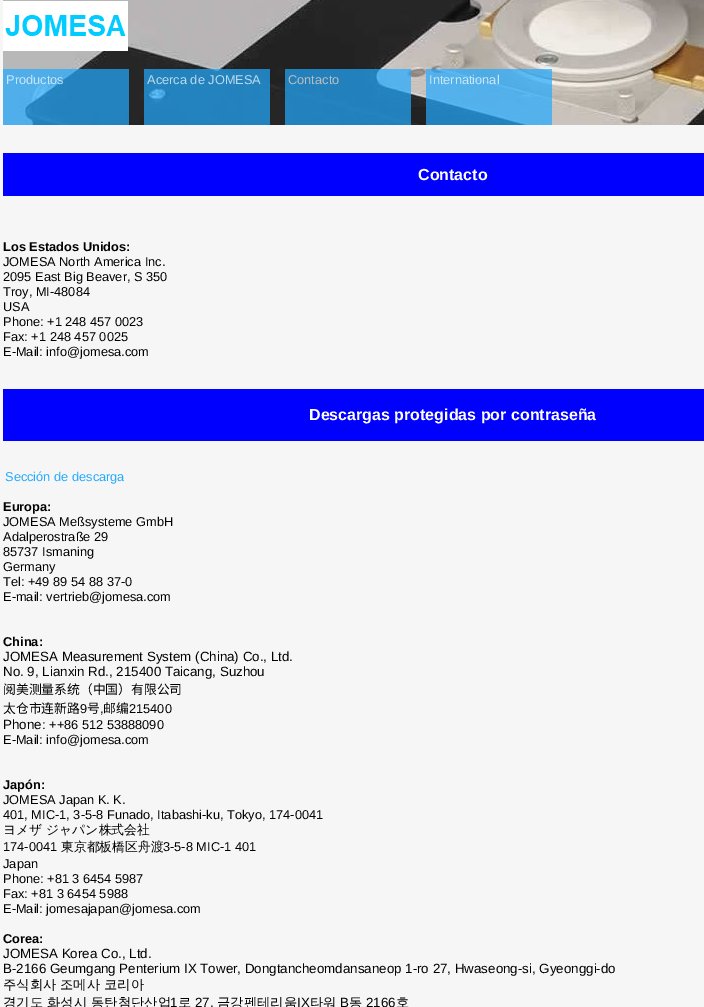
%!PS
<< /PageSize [704 1007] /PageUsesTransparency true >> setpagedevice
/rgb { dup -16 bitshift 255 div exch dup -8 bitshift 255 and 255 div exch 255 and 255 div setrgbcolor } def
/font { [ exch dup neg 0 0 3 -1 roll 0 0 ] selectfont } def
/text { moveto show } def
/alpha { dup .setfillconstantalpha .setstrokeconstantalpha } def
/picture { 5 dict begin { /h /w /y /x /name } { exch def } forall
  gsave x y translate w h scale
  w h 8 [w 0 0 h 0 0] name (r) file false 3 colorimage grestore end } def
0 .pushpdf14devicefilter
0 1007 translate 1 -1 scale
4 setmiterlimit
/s1 { /LiberationSans-Regular 12.8 font 16#CAE6F8 rgb } def
/s2 { /LiberationSans-Regular 12.8 font 16#BDDAEB rgb } def
/s3 { /LiberationSans-Regular 12.8 font 16#BDBDBD rgb } def
/s4 { /LiberationSans-Bold 16 font 16#FFFFFF rgb } def
/s5 { /LiberationSans-Bold 12.8 font 16#000000 rgb } def
/s6 { /LiberationSans-Regular 12.8 font 16#000000 rgb } def
/s7 { /LiberationSans-Regular 12.8 font 16#22AAFF rgb } def
/s8 { /LiberationSans-Regular 13.35 font 16#000000 rgb } def
/s9 { /NotoSansCJKSC-Regular 12.8 font 16#000000 rgb } def
/s10 { /WenQuanYiZenHei-Medium 12.8 font 16#000000 rgb } def
/s11 { /WenQuanYiZenHei-Medium 13.35 font 16#000000 rgb } def
16#F6F6F6 rgb
0 0 704 1007 rectfill
(pic1.raw) 3 0 701 125 picture
(pic2.raw) 3 1 125 50 picture
0.7 alpha
16#22AAFF rgb
3 69 126 56 rectfill
1 alpha
s1
(Productos) 6 84 text
0.7 alpha
16#22AAFF rgb
144 69 126 56 rectfill
1 alpha
s2
(Acerca de JOMESA) 147 84 text
0.7 alpha
16#22AAFF rgb
285 69 126 56 rectfill
1 alpha
s3
(Contacto) 288 84 text
0.7 alpha
16#22AAFF rgb
426 69 126 56 rectfill
1 alpha
s1
(International) 429 84 text
16#0000FF rgb
3 153 701 43 rectfill
s4
(Contacto) 418 180 text
s5
(Los Estados Unidos:) 3 251 text
s6
(JOMESA North America Inc.) 3 266 text
(2095 East Big Beaver, S 350) 3 281 text
(Troy, MI-48084) 3 296 text
(USA) 3 311 text
(Phone: +1 248 457 0023) 3 326 text
(Fax: +1 248 457 0025) 3 341 text
(E-Mail: info@jomesa.com) 3 356 text
16#0000FF rgb
3 389 701 52 rectfill
s4
(Descargas protegidas por contraseña) 309 420 text
s7
(Sección de descarga) 5 481 text
s5
(Europa:) 3 511 text
s6
(JOMESA Meßsysteme GmbH) 3 526 text
(Adalperostraße 29) 3 541 text
(85737 Ismaning) 3 556 text
(Germany) 3 571 text
(Tel: +49 89 54 88 37-0) 3 586 text
(E-mail: vertrieb@jomesa.com) 3 601 text
s5
(China:) 3 646 text
s8
(JOMESA Measurement System \(China\) Co., Ltd.) 3 661 text
(No. 9, Lianxin Rd., 215400 Taicang, Suzhou) 3 676 text
s9
(阅美测量系统（中国）有限公司) 3 694 text
(太仓市连新路) 3 713 text
s6
(9) 80 713 text
s9
(号) 87 713 text
s6
(,) 100 713 text
s9
(邮编) 103 713 text
s6
(215400) 129 713 text
s8
(Phone) 3 729 text
s6
(: ++86 512 53888090) 42 729 text
(E-Mail: info@jomesa.com) 3 744 text
s5
(Japón:) 3 789 text
s6
(JOMESA Japan K. K.) 3 804 text
(401, MIC-1, 3-5-8 Funado, Itabashi-ku, Tokyo, 174-0041) 3 819 text
s10
(ヨメザ ジャパン株式会社) 3 834 text
s6
(174-0041) 3 851 text
s10
(東京都板橋区舟渡) 61 851 text
s6
(3-5-8 MIC-1 401) 163 851 text
(Japan) 3 868 text
(Phone: +81 3 6454 5987) 3 883 text
(Fax: +81 3 6454 5988) 3 898 text
(E-Mail: jomesajapan@jomesa.com) 3 913 text
s5
(Corea:) 3 943 text
s8
(JOMESA Korea Co., Ltd.) 3 958 text
(B-2166 Geumgang Penterium IX Tower, Dongtancheomdansaneop 1-ro 27, Hwaseong-si, Gyeonggi-do) 3 973 text
s11
(주식회사) 3 989 text
(조메사 코리아) 60 989 text
(경기도) 3 1007 text
(화성시 동탄첨단산업) 47 1007 text
s8
(1) 170 1007 text
s11
(로) 178 1007 text
s8
(27,) 195 1007 text
s11
(금강펜테리움) 217 1007 text
s8
(IX) 297 1007 text
s11
(타워) 310 1007 text
s8
(B) 340 1007 text
s11
(동) 349 1007 text
s8
(2166) 366 1007 text
s11
(호) 396 1007 text
.poppdf14devicefilter showpage
